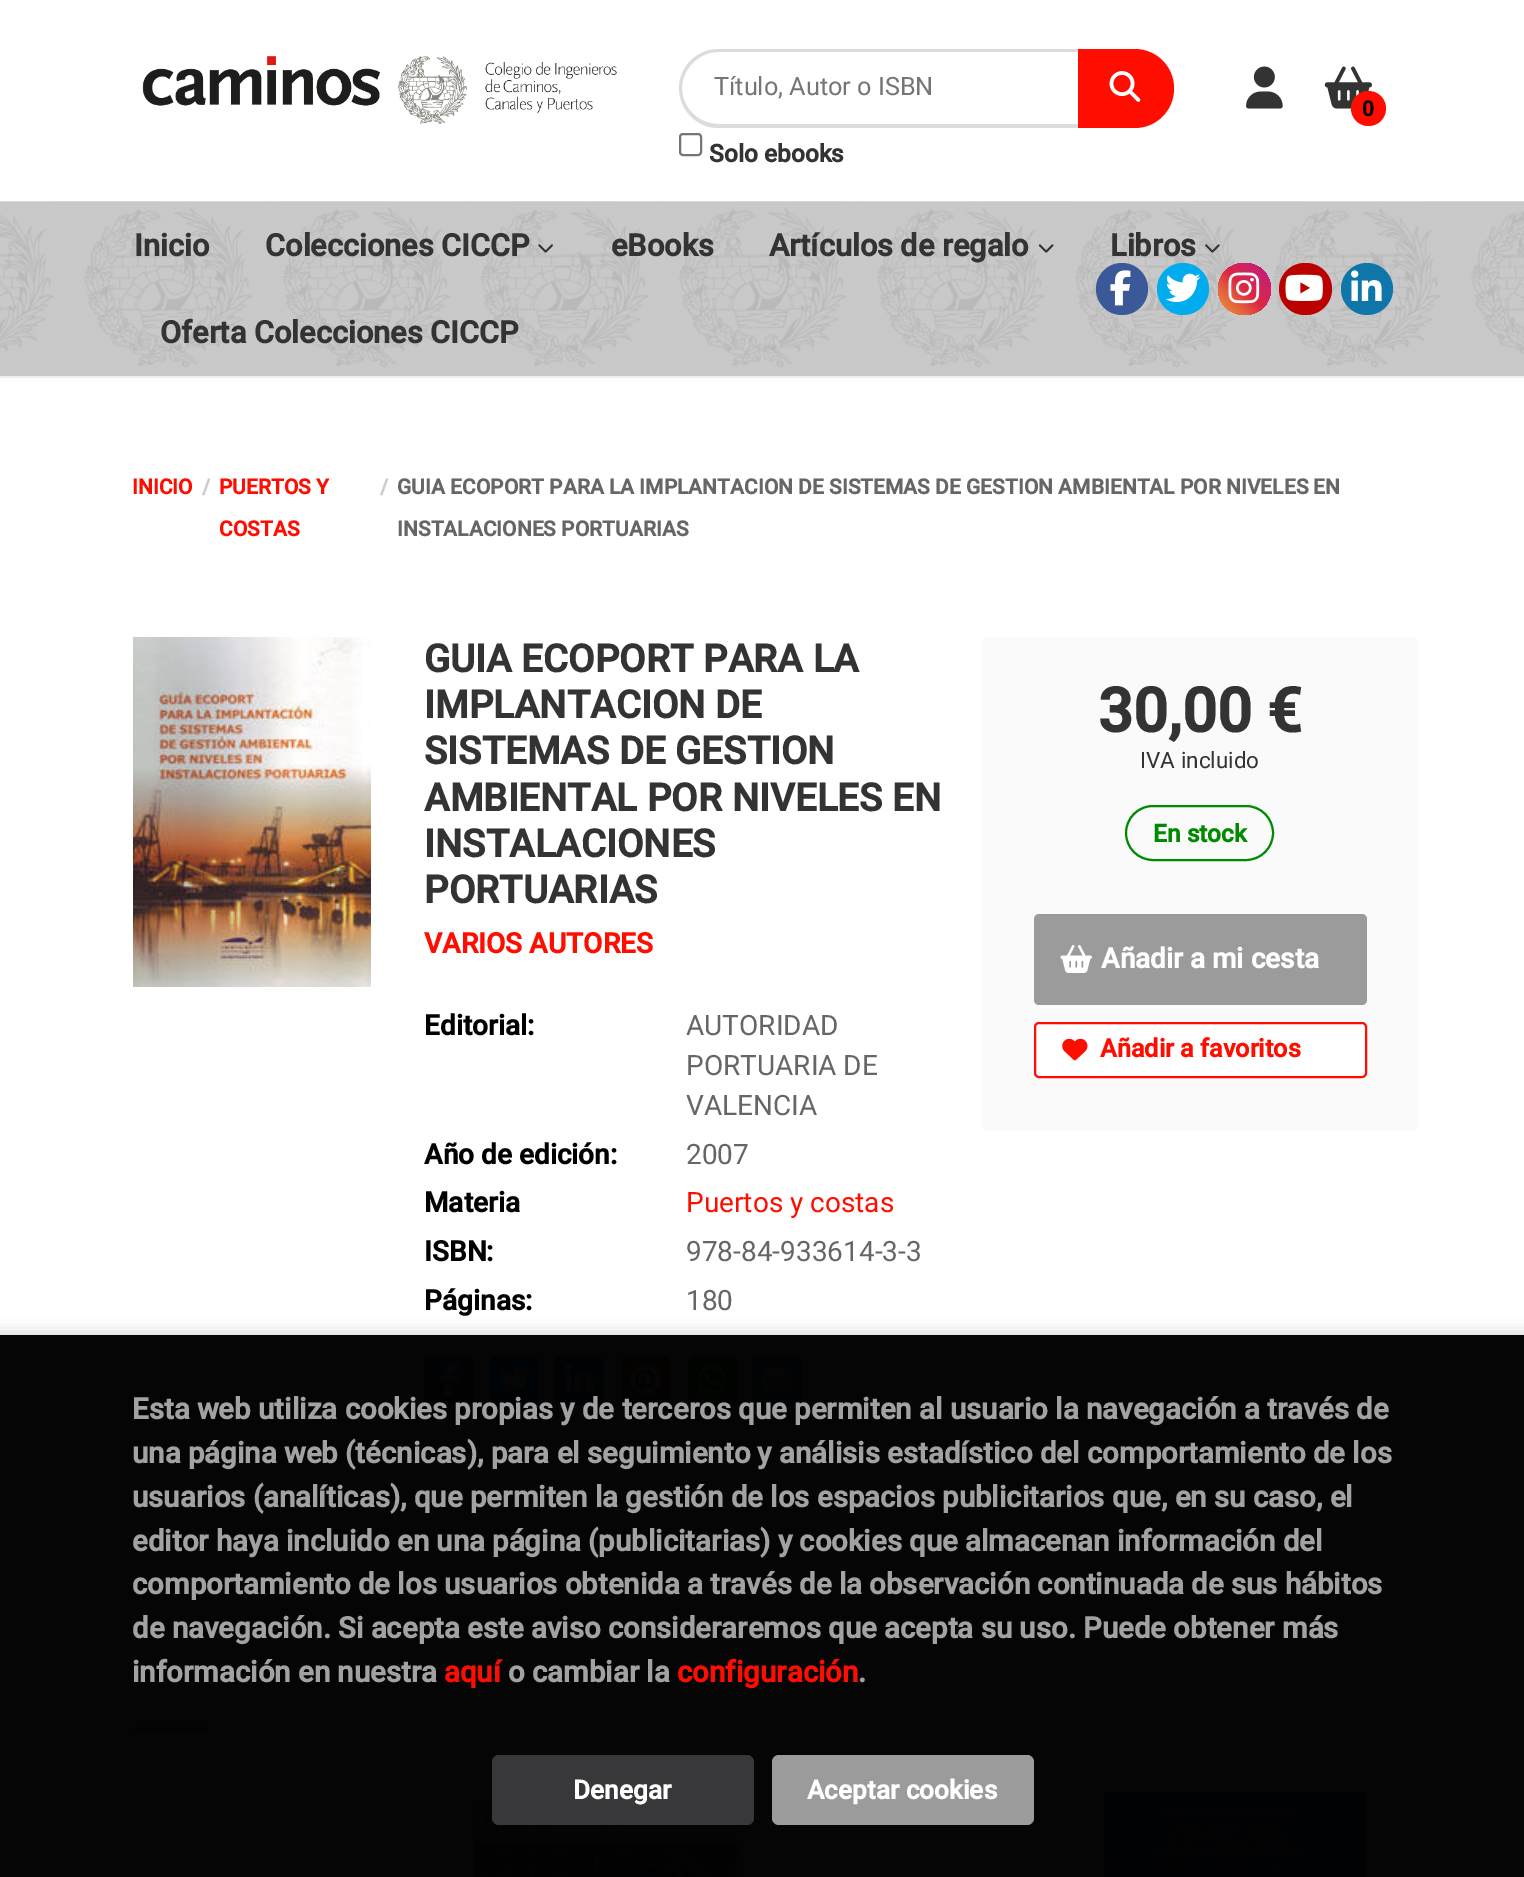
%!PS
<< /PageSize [1524 1877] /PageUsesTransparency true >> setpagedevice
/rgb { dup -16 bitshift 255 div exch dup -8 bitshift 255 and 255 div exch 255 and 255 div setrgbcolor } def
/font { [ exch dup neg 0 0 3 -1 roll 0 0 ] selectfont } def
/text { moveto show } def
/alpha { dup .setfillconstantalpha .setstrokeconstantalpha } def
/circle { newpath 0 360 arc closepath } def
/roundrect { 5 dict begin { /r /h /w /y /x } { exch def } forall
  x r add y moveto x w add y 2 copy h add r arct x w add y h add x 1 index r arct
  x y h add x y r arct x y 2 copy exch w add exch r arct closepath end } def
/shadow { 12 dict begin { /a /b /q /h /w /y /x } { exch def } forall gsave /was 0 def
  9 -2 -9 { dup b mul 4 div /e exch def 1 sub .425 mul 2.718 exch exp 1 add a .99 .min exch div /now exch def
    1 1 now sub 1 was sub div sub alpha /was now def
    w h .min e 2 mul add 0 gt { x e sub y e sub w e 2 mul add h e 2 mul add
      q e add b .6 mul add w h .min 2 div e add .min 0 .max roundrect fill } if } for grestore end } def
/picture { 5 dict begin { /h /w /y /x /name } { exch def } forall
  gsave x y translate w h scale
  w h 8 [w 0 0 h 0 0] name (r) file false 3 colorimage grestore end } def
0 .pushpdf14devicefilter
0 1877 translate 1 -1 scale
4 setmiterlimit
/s1 { /Roboto-Regular 25.25 font 16#757575 rgb } def
/s2 { /Roboto-Bold 24.5 font 16#333333 rgb } def
/s3 { /Roboto-Bold 21 font 16#000000 rgb } def
/s4 { /Roboto-Bold 30.75 font 16#333333 rgb } def
/s5 { /Roboto-Bold 21 font 16#FF0D00 rgb } def
/s6 { /Roboto-Bold 21 font 16#CCCCCC rgb } def
/s7 { /Roboto-Bold 21 font 16#666666 rgb } def
/s8 { /Roboto-Bold 38.5 font 16#333333 rgb } def
/s9 { /Roboto-Bold 28 font 16#FF0D00 rgb } def
/s10 { /Roboto-Bold 28 font 16#000000 rgb } def
/s11 { /Roboto-Regular 28 font 16#666666 rgb } def
/s12 { /Roboto-Regular 28 font 16#FF0D00 rgb } def
/s13 { /Roboto-Bold 61.5 font 16#333333 rgb } def
/s14 { /Roboto-Regular 22.5 font 16#333333 rgb } def
/s15 { /Roboto-Bold 24.5 font 16#008A00 rgb } def
/s16 { /Roboto-Bold 28 font 16#FFFFFF rgb } def
/s17 { /Roboto-Bold 25.25 font 16#FF0D00 rgb } def
/s18 { /Roboto-Bold 29.4 font 16#A2A2A2 rgb } def
/s19 { /Roboto-Bold 29.4 font 16#FF0D00 rgb } def
/s20 { /Roboto-Bold 26.25 font 16#FFFFFF rgb } def
16#FFFFFF rgb
0 0 1524 1877 rectfill
(pic1.raw) 142 56 475 68 picture
16#DCDCDC rgb
718 49 moveto 1078 49 lineto 1078 128 lineto 718 128 lineto 697 128 679 110 679 88 curveto 679 67 697 49 718 49 curveto closepath 718 52 moveto 1078 52 lineto 1078 124 lineto 718 124 lineto 699 124 682 108 682 88 curveto 682 69 699 52 718 52 curveto closepath eofill
s1
(Título, Autor o ISBN) 714 95 text
16#FF0D00 rgb
1078 49 moveto 1134.5 49 lineto 1156.5 49 1174 66.5 1174 88.5 curveto 1174 110.5 1156.5 128 1134.5 128 curveto 1078 128 lineto closepath fill
(pic2.raw) 1109 71 32 31 picture
16#767676 rgb
2 setlinewidth
680 134 21 21 3 roundrect stroke
s2
(Solo ebooks) 709 162 text
(pic3.raw) 1246 66 37 43 picture
(pic4.raw) 1324 66 48 43 picture
16#FF0D00 rgb
1368.5 108.5 17.5 circle fill
s3
(0) 1362 116 text
(pic5.raw) 0 201 1524 175 picture
16#EEEEEE rgb
0 376 1524 2 rectfill
s4
(Inicio) 134 256 text
(Colecciones CICCP) 265 256 text
(pic6.raw) 538 244 15 9 picture
(eBooks) 611 256 text
(Artículos de regalo) 769 256 text
(pic7.raw) 1038 244 16 9 picture
(Libros) 1110 256 text
(pic8.raw) 1205 244 15 9 picture
(Oferta Colecciones CICCP) 160 343 text
16#3B5998 rgb
1122 289 26 circle fill
(pic9.raw) 1110 270 21 36 picture
16#00ACED rgb
1183 289 26 circle fill
(pic10.raw) 1165 273 36 30 picture
gsave 1218 263 53 52 26 roundrect clip newpath
<< /ShadingType 2 /ColorSpace /DeviceRGB /Coords [1218 315 1271 263] /Extend [true true] /Function << /FunctionType 3 /Domain [0 1] /Functions [<< /FunctionType 2 /Domain [0 1] /C0 [0.941 0.58 0.2] /C1 [0.902 0.408 0.235] /N 1 >> << /FunctionType 2 /Domain [0 1] /C0 [0.902 0.408 0.235] /C1 [0.863 0.153 0.263] /N 1 >> << /FunctionType 2 /Domain [0 1] /C0 [0.863 0.153 0.263] /C1 [0.8 0.137 0.4] /N 1 >> << /FunctionType 2 /Domain [0 1] /C0 [0.8 0.137 0.4] /C1 [0.737 0.094 0.533] /N 1 >>] /Bounds [0.25 0.5 0.75] /Encode [0 1 0 1 0 1 0 1] >> >> shfill grestore
(pic11.raw) 1228 272 32 32 picture
16#BB0000 rgb
1279 263 53 52 26 roundrect fill
(pic12.raw) 1285 274 38 27 picture
16#0E76A8 rgb
1367 289 26 circle fill
(pic13.raw) 1351 270 31 31 picture
s5
(INICIO) 132 494 text
s6
(/) 202 494 text
s5
(PUERTOS Y) 219 494 text
(COSTAS) 219 536 text
s6
(/) 380 494 text
s7
(GUIA ECOPORT PARA LA IMPLANTACION DE SISTEMAS DE GESTION AMBIENTAL POR NIVELES EN) 397 494 text
(INSTALACIONES PORTUARIAS) 397 536 text
(pic14.raw) 133 637 238 350 picture
s8
(GUIA ECOPORT PARA LA) 424 672 text
(IMPLANTACION DE) 424 718 text
(SISTEMAS DE GESTION) 424 764 text
(AMBIENTAL POR NIVELES EN) 424 811 text
(INSTALACIONES) 424 857 text
(PORTUARIAS) 424 903 text
s9
(VARIOS AUTORES) 424 953 text
s10
(Editorial:) 424 1035 text
s11
(AUTORIDAD) 686 1035 text
(PORTUARIA DE) 686 1075 text
(VALENCIA) 686 1115 text
s10
(Año de edición:) 424 1164 text
s11
(2007) 686 1164 text
s10
(Materia) 424 1212 text
s12
(Puertos y costas) 686 1212 text
s10
(ISBN:) 424 1261 text
s11
(978-84-933614-3-3) 686 1261 text
s10
(Páginas:) 424 1310 text
s11
(180) 686 1310 text
16#3B5998 rgb
424 1356 49 49 7 roundrect fill
(pic15.raw) 440 1363 19 33 picture
16#00ACED rgb
490 1356 49 49 7 roundrect fill
(pic16.raw) 499 1366 32 27 picture
16#007BB6 rgb
555 1356 49 49 7 roundrect fill
(pic17.raw) 565 1363 28 29 picture
16#CB2027 rgb
621 1356 49 49 7 roundrect fill
(pic18.raw) 630 1364 31 31 picture
16#29A628 rgb
688 1356 49 49 7 roundrect fill
(pic19.raw) 698 1365 28 29 picture
16#3490F3 rgb
753 1356 49 49 7 roundrect fill
(pic20.raw) 761 1367 32 25 picture
16#FAFAFA rgb
982 637 437 494 7 roundrect fill
s13
(30,00 €) 1098 732 text
s14
(IVA incluido) 1140 768 text
16#008A00 rgb
1126 806 147 54 27 roundrect stroke
s15
(En stock) 1153 842 text
16#9B9B9B rgb
1034 914 333 91 5 roundrect fill
(pic21.raw) 1060 945 32 28 picture
s16
(Añadir a mi cesta) 1101 968 text
1035 1023 331 54 4 roundrect gsave fill grestore
16#FF0D00 rgb
stroke
(pic22.raw) 1062 1038 26 23 picture
s17
(Añadir a favoritos) 1100 1057 text
16#EAEAEA rgb
133 1619 1260 2 rectfill
16#9B9B9B rgb
133 1727 75 4 rectfill
(pic23.raw) 474 1799 263 78 picture
(pic24.raw) 1104 1792 261 85 picture
gsave
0 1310 moveto 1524 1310 lineto 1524 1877 lineto 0 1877 lineto closepath 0 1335 moveto 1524 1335 lineto 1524 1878 lineto 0 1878 lineto closepath eoclip newpath
16#000000 rgb
-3 1332 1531 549 0 7 0.15 shadow
grestore
0.98 alpha
16#000000 rgb
0 1335 1524 542 rectfill
1 alpha
s18
(Esta web utiliza cookies propias y de terceros que permiten al usuario la navegación a través de) 132 1419 text
(una página web \(técnicas\), para el seguimiento y análisis estadístico del comportamiento de los) 132 1463 text
(usuarios \(analíticas\), que permiten la gestión de los espacios publicitarios que, en su caso, el) 132 1507 text
(editor haya incluido en una página \(publicitarias\) y cookies que almacenan información del) 132 1551 text
(comportamiento de los usuarios obtenida a través de la observación continuada de sus hábitos) 132 1594 text
(de navegación. Si acepta este aviso consideraremos que acepta su uso. Puede obtener más) 132 1638 text
(información en nuestra) 132 1682 text
s19
(aquí) 444 1682 text
s18
(o cambiar la) 508 1682 text
s19
(configuración) 677 1682 text
s18
(.) 858 1682 text
16#38383A rgb
492 1755 262 70 7 roundrect fill
s20
(Denegar) 573 1799 text
16#9B9B9B rgb
772 1755 262 70 7 roundrect fill
s20
(Aceptar cookies) 807 1799 text
.poppdf14devicefilter showpage
